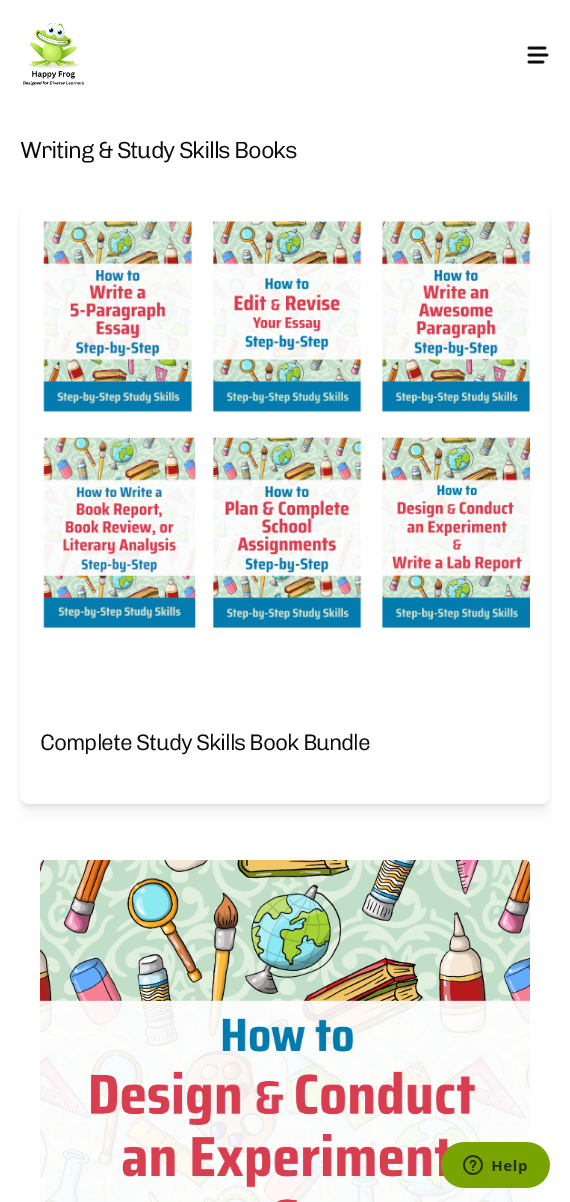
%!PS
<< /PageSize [570 1202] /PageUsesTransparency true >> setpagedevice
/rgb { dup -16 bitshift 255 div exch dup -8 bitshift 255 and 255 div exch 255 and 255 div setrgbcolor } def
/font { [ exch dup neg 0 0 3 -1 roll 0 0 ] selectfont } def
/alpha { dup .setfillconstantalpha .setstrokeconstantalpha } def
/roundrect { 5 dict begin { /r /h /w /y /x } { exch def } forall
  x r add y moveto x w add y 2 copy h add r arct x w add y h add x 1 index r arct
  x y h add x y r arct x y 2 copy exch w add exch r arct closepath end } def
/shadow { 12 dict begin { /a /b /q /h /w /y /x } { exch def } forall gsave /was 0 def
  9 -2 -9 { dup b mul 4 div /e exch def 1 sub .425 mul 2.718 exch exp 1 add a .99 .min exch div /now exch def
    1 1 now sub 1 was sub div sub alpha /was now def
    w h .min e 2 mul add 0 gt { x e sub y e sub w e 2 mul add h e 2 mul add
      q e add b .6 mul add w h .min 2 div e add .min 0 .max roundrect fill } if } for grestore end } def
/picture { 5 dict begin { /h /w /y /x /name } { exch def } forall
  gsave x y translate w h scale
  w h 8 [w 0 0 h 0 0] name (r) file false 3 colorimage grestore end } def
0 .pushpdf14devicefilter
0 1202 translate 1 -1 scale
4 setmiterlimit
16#FFFFFF rgb
0 0 570 1202 rectfill
(pic1.raw) 23 23 61 63 picture
(pic2.raw) 527 46 22 18 picture
/Chivo-Light 23.4 font
16#0D0D0D rgb
20 158 moveto -1.2 0 (Writing & Study Skills Books) ashow
16#000000 rgb
20 215 530 603 9 7 0.04 shadow
20 206 530 603 9 2 0.04 shadow
20 203 530 603 9 1 0.04 shadow
16#FFFFFF rgb
20 201 530 603 9 roundrect fill
(pic3.raw) 43 221 487 407 picture
/Chivo-Light 22.5 font
16#0D0D0D rgb
40 750 moveto -1.1 0 (Complete Study Skills Book Bundle) ashow
(pic4.raw) 40 860 490 342 picture
(pic5.raw) 441 1142 109 46 picture
.poppdf14devicefilter showpage
